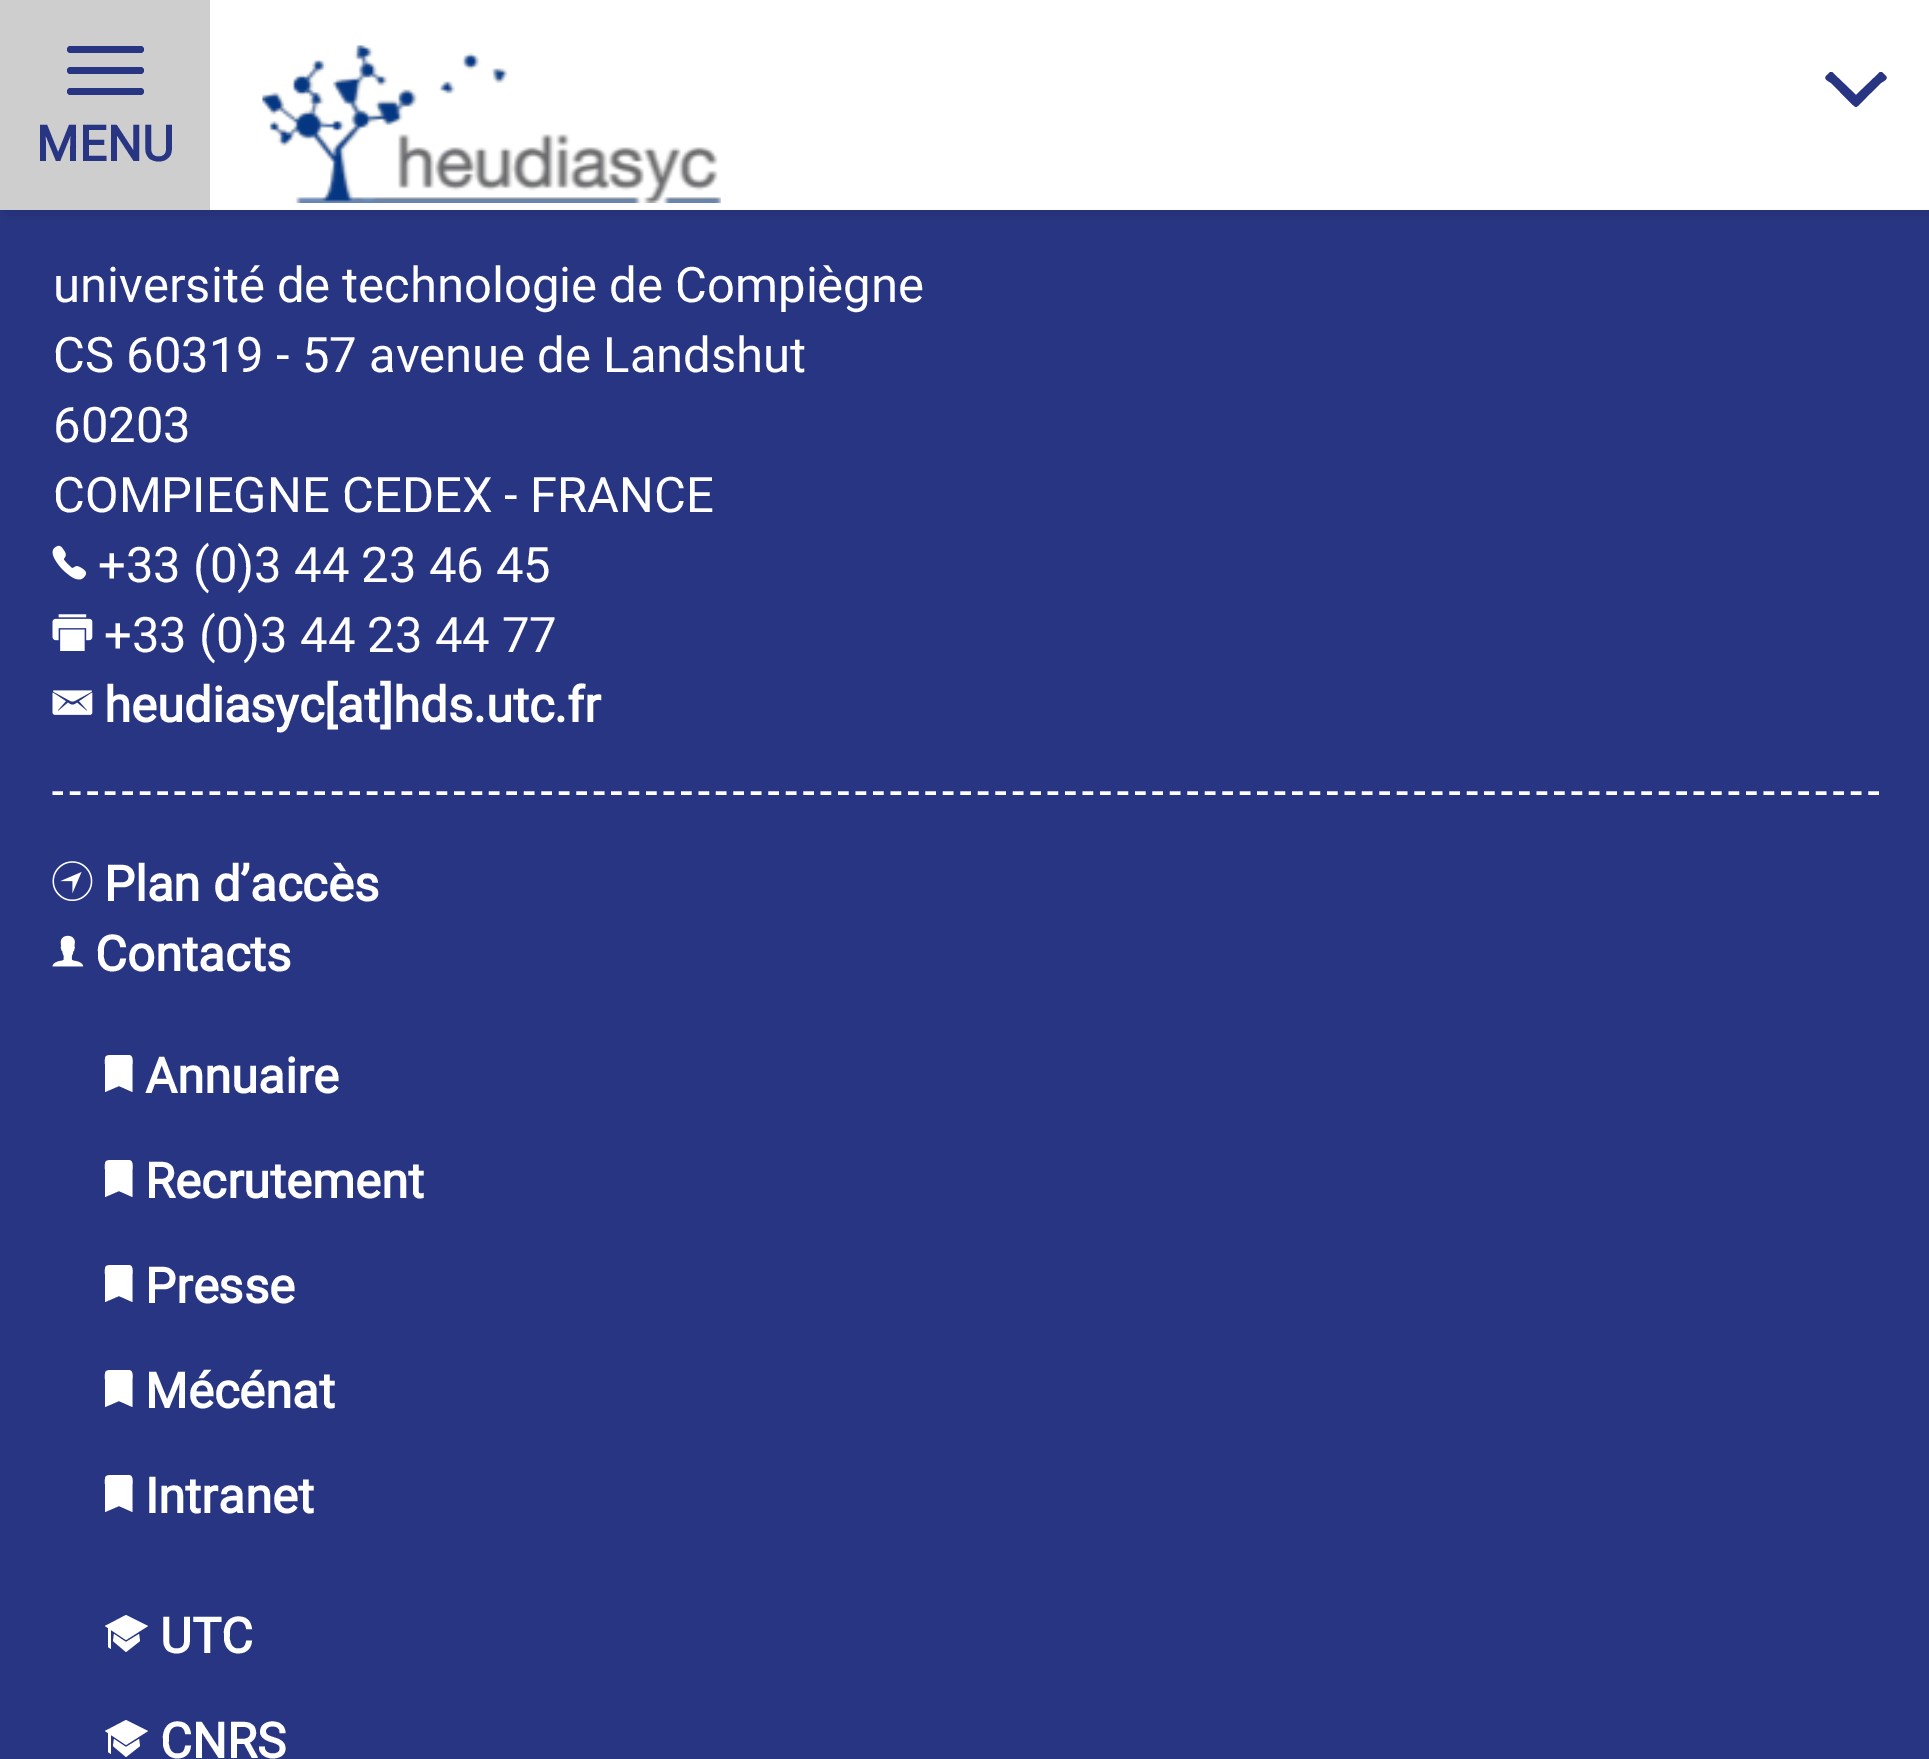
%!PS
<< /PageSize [1929 1759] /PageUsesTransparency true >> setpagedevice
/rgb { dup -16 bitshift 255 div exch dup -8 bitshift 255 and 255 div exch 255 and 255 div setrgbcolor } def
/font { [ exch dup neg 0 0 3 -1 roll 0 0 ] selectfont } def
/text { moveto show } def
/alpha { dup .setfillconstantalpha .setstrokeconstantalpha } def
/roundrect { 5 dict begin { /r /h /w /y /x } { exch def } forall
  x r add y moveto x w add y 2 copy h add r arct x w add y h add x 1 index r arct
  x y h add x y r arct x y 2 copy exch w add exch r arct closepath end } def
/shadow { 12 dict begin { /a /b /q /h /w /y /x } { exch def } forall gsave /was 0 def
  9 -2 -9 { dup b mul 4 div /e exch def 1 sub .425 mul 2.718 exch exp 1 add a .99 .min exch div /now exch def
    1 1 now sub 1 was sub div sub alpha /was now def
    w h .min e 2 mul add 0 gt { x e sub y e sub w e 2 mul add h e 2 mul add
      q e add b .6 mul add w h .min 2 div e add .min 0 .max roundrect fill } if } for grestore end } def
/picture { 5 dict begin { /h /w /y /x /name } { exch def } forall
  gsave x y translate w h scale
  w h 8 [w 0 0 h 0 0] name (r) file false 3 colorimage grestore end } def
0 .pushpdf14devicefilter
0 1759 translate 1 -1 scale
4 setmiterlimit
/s1 { /Roboto-Bold 49 font 16#283583 rgb } def
/s2 { /Roboto-Regular 49 font 16#FFFFFF rgb } def
/s3 { /Roboto-Bold 49 font 16#FFFFFF rgb } def
16#283583 rgb
0 0 1929 1759 rectfill
16#000000 rgb
4 4 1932 210 0 7 0.1 shadow
16#FFFFFF rgb
210 0 1719 210 rectfill
(pic1.raw) 262 45 459 158 picture
16#283583 rgb
1856 95 moveto 1880 72 lineto 1882 72 lineto 1885 75 lineto 1889 79 1885 80 1881 83 curveto 1872 92 lineto 1869 94 1858 107 1856 107 curveto 1854 107 1842 94 1840 92 curveto 1831 83 lineto 1827 80 1823 79 1827 75 curveto 1830 72 lineto 1832 72 lineto closepath fill
16#CECECE rgb
0 0 210 210 rectfill
16#283583 rgb
67 46 77 7 3.5 roundrect fill
67 67 77 7 3.5 roundrect fill
67 88 77 7 3.5 roundrect fill
s1
(MENU) 36 161 text
s2
(université de technologie de Compiègne) 53 302 text
(CS 60319 - 57 avenue de Landshut) 53 372 text
(60203) 53 442 text
(COMPIEGNE CEDEX - FRANCE) 53 512 text
(pic2.raw) 52 545 35 35 picture
(+33 \(0\)3 44 23 46 45) 98 582 text
(pic3.raw) 52 614 41 37 picture
(+33 \(0\)3 44 23 44 77) 104 652 text
(pic4.raw) 52 690 41 25 picture
s3
(heudiasyc[at]hds.utc.fr) 104 722 text
3.5 setlinewidth
[10.5 6.96] 0 setdash
52.5 793 moveto 1879.5 793 lineto stroke
(pic5.raw) 52 861 41 40 picture
(Plan d’accès) 104 901 text
(pic6.raw) 52 935 32 32 picture
(Contacts) 95 971 text
128.5 1055 moveto 133.5 1055 132.5 1061.5 132.5 1064.5 curveto 132.5 1092 lineto 119 1086 lineto 105 1092 lineto 105 1064.5 lineto 105 1057 104 1055 112 1055 curveto closepath fill
(Annuaire) 145 1093 text
128.5 1160 moveto 133.5 1160 132.5 1166.5 132.5 1169.5 curveto 132.5 1197 lineto 119 1191 lineto 105 1197 lineto 105 1169.5 lineto 105 1162 104 1160 112 1160 curveto closepath fill
(Recrutement) 145 1198 text
128.5 1265 moveto 133.5 1265 132.5 1271.5 132.5 1274.5 curveto 132.5 1302 lineto 119 1296 lineto 105 1302 lineto 105 1274.5 lineto 105 1267 104 1265 112 1265 curveto closepath fill
(Presse) 145 1303 text
128.5 1370 moveto 133.5 1370 132.5 1376.5 132.5 1379.5 curveto 132.5 1407 lineto 119 1401 lineto 105 1407 lineto 105 1379.5 lineto 105 1372 104 1370 112 1370 curveto closepath fill
(Mécénat) 145 1408 text
128.5 1475 moveto 133.5 1475 132.5 1481.5 132.5 1484.5 curveto 132.5 1512 lineto 119 1506 lineto 105 1512 lineto 105 1484.5 lineto 105 1477 104 1475 112 1475 curveto closepath fill
(Intranet) 145 1513 text
126 1615 moveto 148 1626 lineto 126 1640 lineto 111 1630 lineto 111 1649 lineto 108 1647 lineto 108 1628 lineto 105 1626 lineto closepath 139 1634 moveto 140 1641 lineto 126 1652 lineto 113 1641 lineto 114 1634 lineto 126 1642 lineto closepath fill
(UTC) 160 1653 text
126 1720 moveto 148 1731 lineto 126 1745 lineto 111 1735 lineto 111 1754 lineto 108 1752 lineto 108 1733 lineto 105 1731 lineto closepath 139 1739 moveto 140 1746 lineto 126 1757 lineto 113 1746 lineto 114 1739 lineto 126 1747 lineto closepath fill
(CNRS) 160 1758 text
.poppdf14devicefilter showpage
